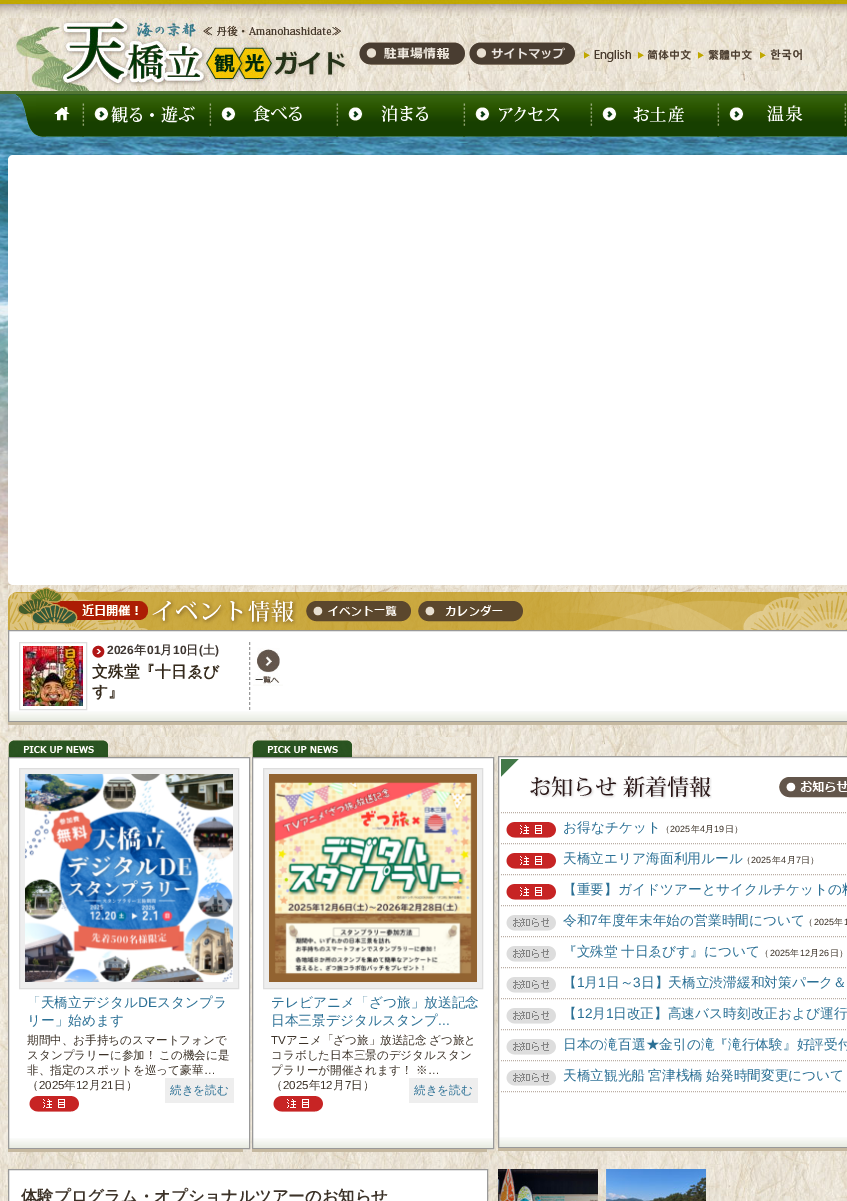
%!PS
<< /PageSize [847 1201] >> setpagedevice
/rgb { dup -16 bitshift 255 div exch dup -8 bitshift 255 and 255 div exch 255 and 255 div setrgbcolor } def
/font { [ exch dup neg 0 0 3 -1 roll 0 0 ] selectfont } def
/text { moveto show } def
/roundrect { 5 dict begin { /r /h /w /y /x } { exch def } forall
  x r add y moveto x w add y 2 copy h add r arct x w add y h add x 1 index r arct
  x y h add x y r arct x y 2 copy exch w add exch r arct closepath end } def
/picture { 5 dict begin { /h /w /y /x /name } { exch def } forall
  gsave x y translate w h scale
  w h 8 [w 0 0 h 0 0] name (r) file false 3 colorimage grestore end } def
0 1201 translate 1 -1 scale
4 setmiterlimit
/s1 { /LiberationSans-Bold 12 font 16#3E3631 rgb } def
/s2 { /WenQuanYiZenHei-Bold 12 font 16#3E3631 rgb } def
/s3 { /WenQuanYiZenHei-Bold 15.75 font 16#34291B rgb } def
/s4 { /WenQuanYiZenHei-Medium 13.7 font 16#2B7095 rgb } def
/s5 { /LiberationSans-Regular 13.7 font 16#2B7095 rgb } def
/s6 { /WenQuanYiZenHei-Medium 11.6 font 16#3C3228 rgb } def
/s7 { /LiberationSans-Regular 11.6 font 16#3C3228 rgb } def
/s8 { /WenQuanYiZenHei-Medium 11.6 font 16#2B7095 rgb } def
/s9 { /WenQuanYiZenHei-Medium 9 font 16#3C3228 rgb } def
/s10 { /LiberationSans-Regular 9 font 16#3C3228 rgb } def
/s11 { /WenQuanYiZenHei-Bold 16.4 font 16#3C3228 rgb } def
16#FFFFFF rgb
0 0 847 1201 rectfill
(pic1.raw) 0 610 847 591 picture
(pic2.raw) 0 94 847 516 picture
(pic3.raw) 0 0 847 18 picture
(pic4.raw) 0 18 847 73 picture
16#537634 rgb
0 91 847 3 rectfill
(pic5.raw) 8 18 349 73 picture
(pic6.raw) 359 42 106 23 picture
(pic7.raw) 469 42 106 23 picture
(pic8.raw) 584 50 47 12 picture
(pic9.raw) 638 49 53 11 picture
(pic10.raw) 698 49 54 11 picture
(pic11.raw) 760 49 42 11 picture
(pic12.raw) 16 94 30 43 picture
(pic13.raw) 46 94 36 43 picture
(pic14.raw) 82 94 127 43 picture
(pic15.raw) 111 106 84 17 picture
(pic14.raw) 209 94 127 43 picture
(pic16.raw) 253 105 49 17 picture
(pic14.raw) 336 94 127 43 picture
(pic17.raw) 381 105 47 17 picture
(pic14.raw) 463 94 127 43 picture
(pic18.raw) 499 107 61 15 picture
(pic14.raw) 590 94 127 43 picture
(pic19.raw) 633 106 51 17 picture
(pic14.raw) 717 94 127 43 picture
(pic20.raw) 767 105 36 17 picture
(pic21.raw) 844 94 3 43 picture
16#FFFFFF rgb
8 155 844 430 5 roundrect fill
(pic22.raw) 8 585 292 45 picture
(pic23.raw) 300 585 250 45 picture
(pic24.raw) 306 601 105 21 picture
(pic25.raw) 418 601 105 21 picture
(pic26.raw) 550 585 297 45 picture
9 631 838 80 rectfill
(pic27.raw) 9 711 838 10 picture
16#999999 rgb
8.5 630.5 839 91 rectstroke
[3 2] 0 setdash
249.5 642 moveto 249.5 710 lineto stroke
16#DDDDDD rgb
[] 0 setdash
19.5 642.5 67 67 rectstroke
(pic28.raw) 23 646 60 60 picture
(pic29.raw) 92 645 13 13 picture
s1
(2026) 107 654 text
s2
(年) 134 654 text
s1
(01) 147 654 text
s2
(月) 160 654 text
s1
(10) 173 654 text
s2
(日) 186 654 text
s1
(\() 199 654 text
s2
(土) 203 654 text
s1
(\)) 215 654 text
s3
(文殊堂『十日ゑび) 92 677 text
(す』) 92 697 text
(pic30.raw) 253 648 30 38 picture
16#C5B89F rgb
8 722 839 3 rectfill
(pic31.raw) 8 737 225 20 picture
16#FFFFFF rgb
9 758 240 380 rectfill
(pic32.raw) 9 1138 240 10 picture
16#999999 rgb
8.5 757.5 241 391 rectstroke
16#EEEEEE rgb
19.5 768.5 moveto 238.5 768.5 lineto 238.5 988.5 lineto 19.5 988.5 lineto closepath gsave fill grestore
16#DDDDDD rgb
stroke
(pic33.raw) 25 774 208 208 picture
s4
(「天橋立デジタル) 27 1007 text
s5
(DE) 138 1007 text
s4
(スタンプラ) 157 1007 text
(リー」始めます) 27 1025 text
s6
(期間中、お手持ちのスマートフォンで) 27 1044 text
27 1059 moveto -1 0 32 (スタンプラリーに参加！ この機会に是) widthshow
(非、指定のスポットを巡って豪華) 27 1074 text
s7
(…) 204 1074 text
s6
(（) 27 1089 text
s7
(2025) 39 1089 text
s6
(年) 64 1089 text
s7
(12) 76 1089 text
s6
(月) 89 1089 text
s7
(21) 101 1089 text
s6
(日）) 114 1089 text
(pic34.raw) 29 1096 50 16 picture
16#EEEEEE rgb
165 1078 69 25 rectfill
s8
(続きを読む) 170 1094 text
16#C5B89F rgb
8 1149 235 3 rectfill
(pic31.raw) 252 737 225 20 picture
16#FFFFFF rgb
253 758 240 380 rectfill
(pic32.raw) 253 1138 240 10 picture
16#999999 rgb
252.5 757.5 241 391 rectstroke
16#EEEEEE rgb
263.5 768.5 moveto 482.5 768.5 lineto 482.5 988.5 lineto 263.5 988.5 lineto closepath gsave fill grestore
16#DDDDDD rgb
stroke
(pic35.raw) 269 774 208 208 picture
s4
(テレビアニメ「ざつ旅」放送記念) 271 1007 text
(日本三景デジタルスタンプ) 271 1025 text
s5
(...) 438 1025 text
s7
(TV) 271 1044 text
/WenQuanYiZenHei-Medium 11.6 font
286 1044 moveto -1 0 32 (アニメ「ざつ旅」放送記念 ざつ旅と) widthshow
(コラボした日本三景のデジタルスタン) 271 1059 text
(プラリーが開催されます！ ※) 271 1074 text
s7
(…) 428 1074 text
s6
(（) 271 1089 text
s7
(2025) 283 1089 text
s6
(年) 309 1089 text
s7
(12) 320 1089 text
s6
(月) 333 1089 text
s7
(7) 345 1089 text
s6
(日）) 351 1089 text
(pic34.raw) 273 1096 50 16 picture
16#EEEEEE rgb
409 1078 69 25 rectfill
s8
(続きを読む) 414 1094 text
16#C5B89F rgb
252 1149 235 3 rectfill
16#FFFFFF rgb
499 757 348 380 rectfill
(pic36.raw) 499 1137 348 10 picture
16#999999 rgb
498.5 756.5 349 391 rectstroke
(pic37.raw) 501 759 211 40 picture
(pic38.raw) 779 777 68 21 picture
16#BBAEA4 rgb
[1 1] 0 setdash
501 1091.5 moveto 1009 1091.5 lineto stroke
501 812.5 moveto 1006 812.5 lineto stroke
(pic34.raw) 506 822 50 16 picture
s4
(お得なチケット) 563 832 text
s9
(（) 661 832 text
s10
(2025) 670 832 text
s9
(年) 691 832 text
s10
(4) 700 832 text
s9
(月) 705 832 text
s10
(19) 714 832 text
s9
(日）) 725 832 text
16#BBAEA4 rgb
501 843.5 moveto 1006 843.5 lineto stroke
(pic34.raw) 506 853 50 16 picture
s4
(天橋立エリア海面利用ルール) 563 863 text
s9
(（) 742 863 text
s10
(2025) 751 863 text
s9
(年) 772 863 text
s10
(4) 781 863 text
s9
(月) 787 863 text
s10
(7) 796 863 text
s9
(日）) 801 863 text
16#BBAEA4 rgb
501 874.5 moveto 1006 874.5 lineto stroke
(pic34.raw) 506 884 50 16 picture
s4
(【重要】ガイドツアーとサイクルチケットの料) 563 894 text
16#BBAEA4 rgb
501 905.5 moveto 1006 905.5 lineto stroke
(pic39.raw) 506 915 50 16 picture
s4
(令和) 563 925 text
s5
(7) 590 925 text
s4
(年度年末年始の営業時間について) 598 925 text
s9
(（) 804 925 text
s10
(2025) 814 925 text
s9
(年) 834 925 text
s10
(1) 844 925 text
16#BBAEA4 rgb
501 936.5 moveto 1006 936.5 lineto stroke
(pic39.raw) 506 946 50 16 picture
/WenQuanYiZenHei-Medium 13.7 font
16#2B7095 rgb
563 956 moveto -1 0 32 (『文殊堂 十日ゑびす』について) widthshow
s9
(（) 760 956 text
s10
(2025) 770 956 text
s9
(年) 790 956 text
s10
(12) 800 956 text
s9
(月) 810 956 text
s10
(26) 819 956 text
s9
(日）) 830 956 text
16#BBAEA4 rgb
501 967.5 moveto 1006 967.5 lineto stroke
(pic39.raw) 506 977 50 16 picture
s4
(【) 563 987 text
s5
(1) 577 987 text
s4
(月) 584 987 text
s5
(1) 598 987 text
s4
(日～) 606 987 text
s5
(3) 633 987 text
s4
(日】天橋立渋滞緩和対策パーク＆) 641 987 text
16#BBAEA4 rgb
501 998.5 moveto 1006 998.5 lineto stroke
(pic39.raw) 506 1008 50 16 picture
s4
(【) 563 1018 text
s5
(12) 577 1018 text
s4
(月) 592 1018 text
s5
(1) 606 1018 text
s4
(日改正】高速バス時刻改正および運行) 613 1018 text
16#BBAEA4 rgb
501 1029.5 moveto 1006 1029.5 lineto stroke
(pic39.raw) 506 1039 50 16 picture
s4
(日本の滝百選★金引の滝『滝行体験』好評受付) 563 1049 text
16#BBAEA4 rgb
501 1060.5 moveto 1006 1060.5 lineto stroke
(pic39.raw) 506 1070 50 16 picture
16#2B7095 rgb
563 1080 moveto -1 0 32 (天橋立観光船 宮津桟橋 始発時間変更について) widthshow
16#C5B89F rgb
498 1148 349 3 rectfill
16#FFFFFF rgb
8.5 1169.5 moveto 487.5 1169.5 lineto 487.5 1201.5 lineto 8.5 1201.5 lineto closepath gsave fill grestore
16#999999 rgb
[] 0 setdash
stroke
s11
(体験プログラム・オプショナルツアーのお知らせ) 21 1202 text
(pic40.raw) 498 1169 208 32 picture
showpage
